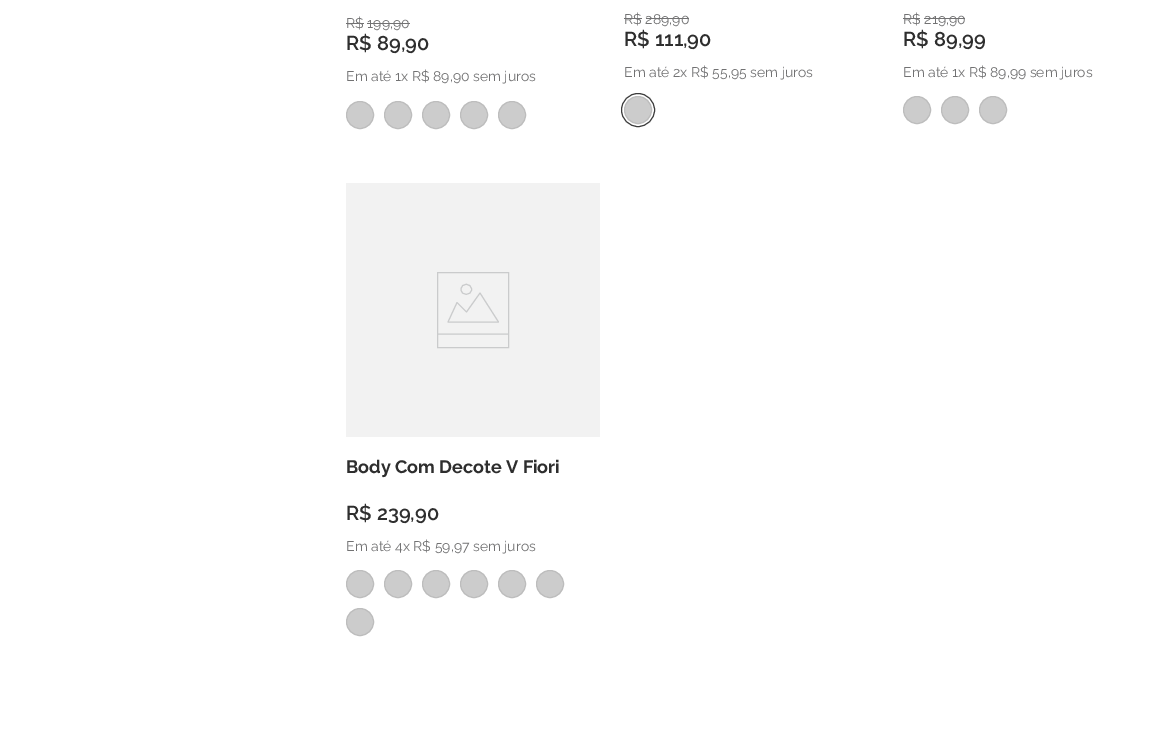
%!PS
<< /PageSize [1171 749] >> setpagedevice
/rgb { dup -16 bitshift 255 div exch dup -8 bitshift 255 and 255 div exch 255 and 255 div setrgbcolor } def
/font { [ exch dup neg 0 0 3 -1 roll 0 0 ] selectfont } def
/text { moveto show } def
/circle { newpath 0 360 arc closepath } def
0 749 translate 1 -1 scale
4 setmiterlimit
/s1 { /Raleway-Regular 14 font 16#727273 rgb } def
/s2 { /Raleway-SemiBold 20 font 16#2E2E2E rgb } def
/s3 { /Raleway-Bold 18 font 16#2E2E2E rgb } def
16#FFFFFF rgb
0 0 1171 749 rectfill
s1
(R$ 199,90) 346 28 text
346 23 18 1 rectfill
367 23 43 1 rectfill
s2
(R$ 89,90) 346 50 text
s1
(Em até 1x R$ 89,90 sem juros) 346 81 text
16#CCCCCC rgb
360 115 13.5 circle gsave fill grestore
16#BDBDBD rgb
stroke
16#CCCCCC rgb
398 115 13.5 circle gsave fill grestore
16#BDBDBD rgb
stroke
16#CCCCCC rgb
436 115 13.5 circle gsave fill grestore
16#BDBDBD rgb
stroke
16#CCCCCC rgb
474 115 13.5 circle gsave fill grestore
16#BDBDBD rgb
stroke
16#CCCCCC rgb
512 115 13.5 circle gsave fill grestore
16#BDBDBD rgb
stroke
s1
(R$ 289,90) 624 24 text
624 18 18 1 rectfill
646 18 43 1 rectfill
s2
(R$ 111,90) 624 46 text
s1
(Em até 2x R$ 55,95 sem juros) 624 77 text
16#CCCCCC rgb
638 110 13.5 circle gsave fill grestore
16#BDBDBD rgb
stroke
16#3B3B3B rgb
638 110 16.5 circle stroke
s1
(R$ 219,90) 903 24 text
903 18 17 1 rectfill
924 18 41 1 rectfill
s2
(R$ 89,99) 903 46 text
s1
(Em até 1x R$ 89,99 sem juros) 903 77 text
16#CCCCCC rgb
917 110 13.5 circle gsave fill grestore
16#BDBDBD rgb
stroke
16#CCCCCC rgb
955 110 13.5 circle gsave fill grestore
16#BDBDBD rgb
stroke
16#CCCCCC rgb
993 110 13.5 circle gsave fill grestore
16#BDBDBD rgb
stroke
16#F2F2F2 rgb
346 183 254 254 rectfill
16#CACBCC rgb
437.5 272.5 71 75 rectstroke
1 setlinecap
1 setlinejoin
448 322 moveto 457 302.5 lineto 466.5 312 lineto 480 293 lineto 498.5 322 lineto closepath stroke
0 setlinecap
0 setlinejoin
471.5 289.5 moveto 471.5 296 461 296 461 289.5 curveto 461 282.5 471.5 282.5 471.5 289.5 curveto closepath stroke
437.5 334 moveto 509 334 lineto stroke
s3
(Body Com Decote V Fiori) 346 473 text
s2
(R$ 239,90) 346 520 text
s1
(Em até 4x R$ 59,97 sem juros) 346 551 text
16#CCCCCC rgb
360 584 13.5 circle gsave fill grestore
16#BDBDBD rgb
stroke
16#CCCCCC rgb
398 584 13.5 circle gsave fill grestore
16#BDBDBD rgb
stroke
16#CCCCCC rgb
436 584 13.5 circle gsave fill grestore
16#BDBDBD rgb
stroke
16#CCCCCC rgb
474 584 13.5 circle gsave fill grestore
16#BDBDBD rgb
stroke
16#CCCCCC rgb
512 584 13.5 circle gsave fill grestore
16#BDBDBD rgb
stroke
16#CCCCCC rgb
550 584 13.5 circle gsave fill grestore
16#BDBDBD rgb
stroke
16#CCCCCC rgb
360 622 13.5 circle gsave fill grestore
16#BDBDBD rgb
stroke
showpage
